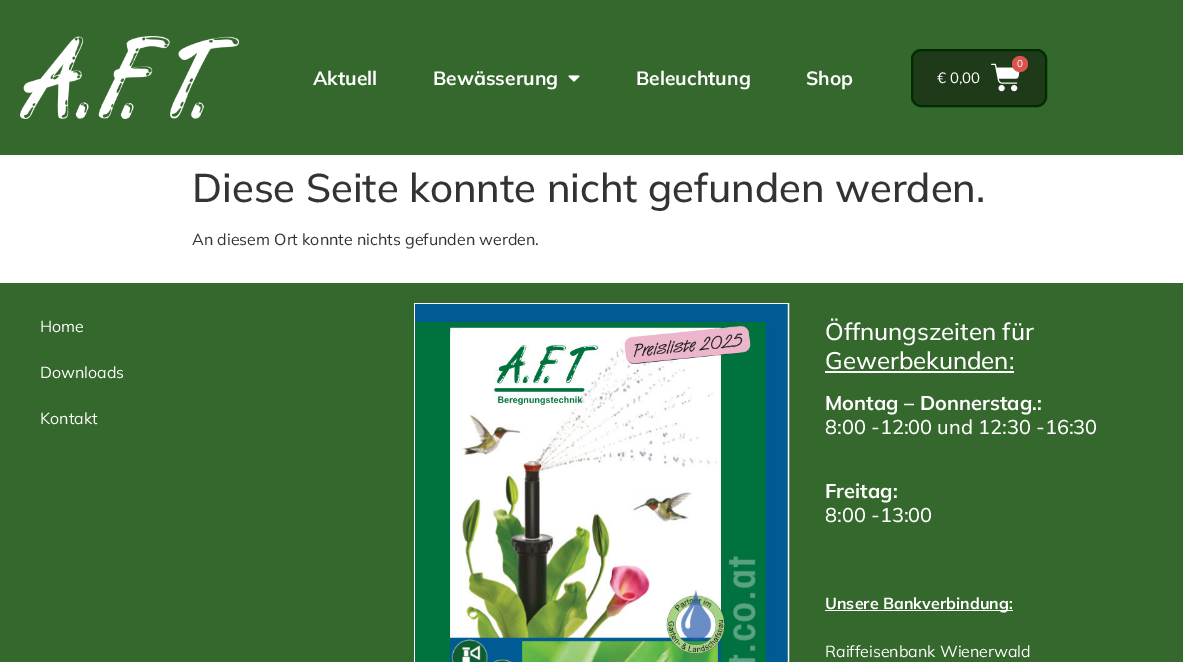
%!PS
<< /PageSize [1183 662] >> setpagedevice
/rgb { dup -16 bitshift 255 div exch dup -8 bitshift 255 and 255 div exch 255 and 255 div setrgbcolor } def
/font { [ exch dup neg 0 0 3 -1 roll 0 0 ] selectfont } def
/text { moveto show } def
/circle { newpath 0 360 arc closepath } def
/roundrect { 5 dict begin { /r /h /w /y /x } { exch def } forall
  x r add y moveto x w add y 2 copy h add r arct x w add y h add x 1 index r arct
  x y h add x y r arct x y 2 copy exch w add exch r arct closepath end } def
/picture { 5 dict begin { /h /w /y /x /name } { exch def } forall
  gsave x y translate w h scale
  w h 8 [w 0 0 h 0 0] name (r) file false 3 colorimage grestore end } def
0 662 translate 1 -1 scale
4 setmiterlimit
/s1 { /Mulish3-ExtraLight 19.25 font 16#FFFFFF rgb } def
/s2 { /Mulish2-ExtraLight 10 font 16#FFFFFF rgb } def
/s3 { /Mulish2-ExtraLight 15 font 16#FFFFFF rgb } def
/s4 { /Mulish-ExtraLight 40 font 16#333333 rgb } def
/s5 { /Mulish2-ExtraLight 16 font 16#333333 rgb } def
/s6 { /Mulish2-ExtraLight 16 font 16#FFFFFF rgb } def
/s7 { /Mulish-ExtraLight 24 font 16#FFFFFF rgb } def
/s8 { /Mulish3-ExtraLight 20 font 16#FFFFFF rgb } def
/s9 { /Mulish-ExtraLight 20 font 16#FFFFFF rgb } def
/s10 { /Mulish3-ExtraLight 16 font 16#FFFFFF rgb } def
16#FFFFFF rgb
0 0 1183 662 rectfill
16#35682D rgb
0 0 1183 155 rectfill
(pic1.raw) 20 36 219 83 picture
s1
(Aktuell) 313 85 text
(Bewässerung) 433 85 text
(pic2.raw) 568 75 12 7 picture
(Beleuchtung) 636 85 text
(Shop) 806 85 text
16#1E3A19 rgb
912 50 134 56 9 roundrect gsave fill grestore
16#002C00 rgb
2 setlinewidth
stroke
(pic3.raw) 991 63 29 29 picture
16#D9534F rgb
1020 64 8 circle fill
s2
(0) 1017 67 text
s3
(€ 0,00) 937 83 text
s4
(Diese Seite konnte nicht gefunden werden.) 192 202 text
s5
(An diesem Ort konnte nichts gefunden werden.) 192 245 text
16#35682D rgb
0 283 1183 379 rectfill
s6
(Home) 40 332 text
(Downloads) 40 378 text
(Kontakt) 40 424 text
1 setlinewidth
414.5 303.5 374 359 rectstroke
(pic4.raw) 415 304 373 358 picture
s7
(Öffnungszeiten für) 825 340 text
(Gewerbekunden:) 825 369 text
825 371 189 2 rectfill
s8
(Montag – Donnerstag.:) 825 410 text
s9
(8:00 -12:00 und 12:30 -16:30) 825 434 text
s8
(Freitag:) 825 498 text
s9
(8:00 -13:00) 825 522 text
825 610 188 1 rectfill
s10
(Unsere Bankverbindung:) 825 609 text
s6
(Raiffeisenbank Wienerwald) 825 657 text
showpage
